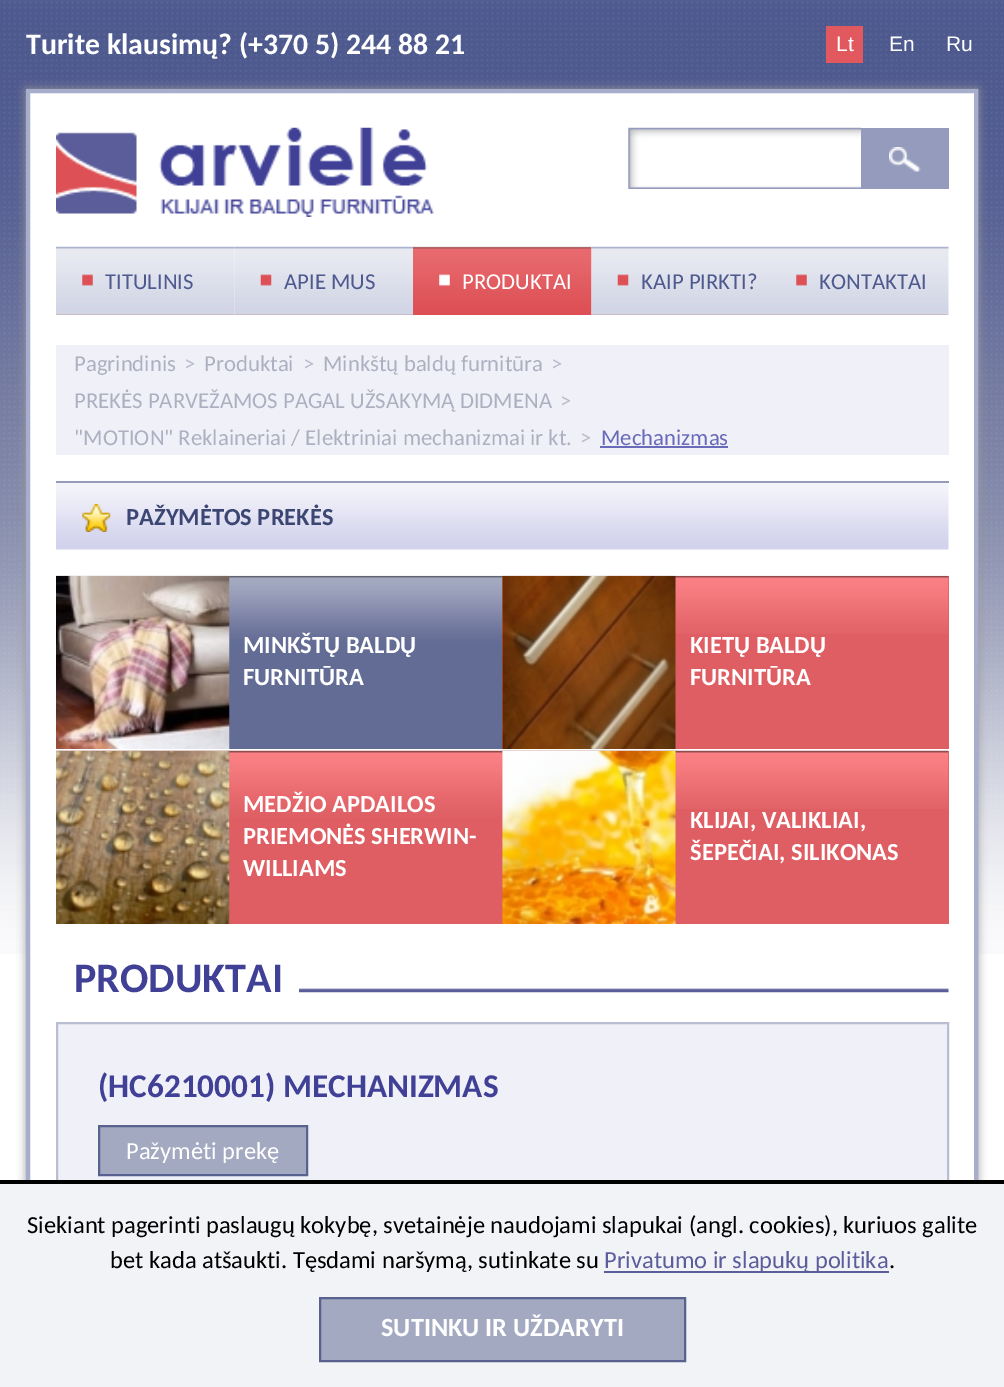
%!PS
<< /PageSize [1004 1387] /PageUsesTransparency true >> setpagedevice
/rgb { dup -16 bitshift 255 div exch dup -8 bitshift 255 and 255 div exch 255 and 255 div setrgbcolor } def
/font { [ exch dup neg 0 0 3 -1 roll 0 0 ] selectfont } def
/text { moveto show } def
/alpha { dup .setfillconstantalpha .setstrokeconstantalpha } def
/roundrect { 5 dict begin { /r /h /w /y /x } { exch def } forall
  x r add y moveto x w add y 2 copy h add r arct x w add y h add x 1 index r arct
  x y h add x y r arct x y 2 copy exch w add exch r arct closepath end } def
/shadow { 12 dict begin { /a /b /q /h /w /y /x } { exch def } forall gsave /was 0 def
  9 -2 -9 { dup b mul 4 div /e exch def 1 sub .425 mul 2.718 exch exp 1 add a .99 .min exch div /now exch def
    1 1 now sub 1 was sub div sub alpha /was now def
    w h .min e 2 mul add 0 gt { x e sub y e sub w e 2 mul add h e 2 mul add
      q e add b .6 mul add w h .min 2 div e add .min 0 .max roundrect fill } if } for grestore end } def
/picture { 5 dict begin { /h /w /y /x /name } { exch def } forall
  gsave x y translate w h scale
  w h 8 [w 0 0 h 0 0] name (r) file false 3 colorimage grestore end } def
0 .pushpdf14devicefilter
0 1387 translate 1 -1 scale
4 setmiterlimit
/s1 { /Carlito-Bold 29.75 font 16#FFFFFF rgb } def
/s2 { /LiberationSans-Regular 21 font 16#FFFFFF rgb } def
/s3 { /Carlito-Regular 22.75 font 16#4E598E rgb } def
/s4 { /Carlito-Regular 22.75 font 16#FFFFFF rgb } def
/s5 { /Carlito-Regular 22.75 font 16#ADB0C0 rgb } def
/s6 { /Carlito-Regular 22.75 font 16#BABCCC rgb } def
/s7 { /Carlito-Regular 22.75 font 16#696AB9 rgb } def
/s8 { /Carlito-Bold 24.5 font 16#3C4673 rgb } def
/s9 { /Carlito-Bold 24.5 font 16#FFFFFF rgb } def
/s10 { /Carlito-Bold 42 font 16#3F4096 rgb } def
/s11 { /Carlito-Bold 33.25 font 16#3F4096 rgb } def
/s12 { /Carlito-Regular 24.5 font 16#FFFFFF rgb } def
/s13 { /Carlito-Regular 24.5 font 16#000000 rgb } def
/s14 { /Carlito-Regular 24.5 font 16#5B5C9A rgb } def
/s15 { /Carlito-Bold 26.25 font 16#FFFFFF rgb } def
16#FFFFFF rgb
0 0 1004 1387 rectfill
(pic1.raw) 0 0 1004 954 picture
s1
(Turite klausimų? \(+370 5\) 244 88 21) 26 54 text
16#E1595E rgb
826 26 37 37 rectfill
s2
(Lt) 836 51 text
(En) 889 51 text
(Ru) 946 51 text
16#999999 rgb
26 89 952 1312 0 4.5 1 shadow
16#FFFFFF rgb
30 93 944 1087 rectfill
16#A7ADCC rgb
4 setlinewidth
28 91 948 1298 rectstroke
(pic2.raw) 56 127 378 90 picture
(pic3.raw) 628 127 233 62 picture
16#959BBC rgb
861 128 88 61 rectfill
(pic4.raw) 889 147 32 25 picture
(pic5.raw) 56 246 179 69 picture
(pic6.raw) 82 274 11 12 picture
s3
(TITULINIS) 105 289 text
(pic7.raw) 234 246 179 69 picture
(pic8.raw) 260 274 12 12 picture
(APIE MUS) 284 289 text
(pic9.raw) 413 246 179 69 picture
(pic10.raw) 439 274 11 12 picture
s4
(PRODUKTAI) 462 289 text
(pic11.raw) 591 246 179 69 picture
(pic8.raw) 617 274 12 12 picture
s3
(KAIP PIRKTI?) 641 289 text
(pic5.raw) 770 246 179 69 picture
(pic6.raw) 796 274 11 12 picture
(KONTAKTAI) 819 289 text
16#F0F1F8 rgb
56 345 893 110 rectfill
s5
(Pagrindinis) 74 371 text
s6
(>) 184 371 text
s5
(Produktai) 204 371 text
s6
(>) 303 371 text
s5
(Minkštų baldų furnitūra) 323 371 text
s6
(>) 551 371 text
s5
(PREKĖS PARVEŽAMOS PAGAL UŽSAKYMĄ DIDMENA) 74 408 text
s6
(>) 560 408 text
s5
("MOTION" Reklaineriai / Elektriniai mechanizmai ir kt.) 74 445 text
s6
(>) 580 445 text
s7
(Mechanizmas) 601 445 text
600 446 128 2 rectfill
(pic12.raw) 56 483 893 67 picture
16#959BBD rgb
56 481 893 2 rectfill
(pic13.raw) 82 504 29 28 picture
s8
(PAŽYMĖTOS PREKĖS) 126 525 text
16#636C95 rgb
229 645 273 104 rectfill
(pic14.raw) 56 575 446 71 picture
(pic15.raw) 56 575 174 174 picture
s9
(MINKŠTŲ BALDŲ) 243 653 text
(FURNITŪRA) 243 685 text
16#DF5E63 rgb
502 576 447 173 rectfill
(pic16.raw) 502 575 447 59 picture
(pic17.raw) 502 575 174 174 picture
s9
(KIETŲ BALDŲ) 690 653 text
(FURNITŪRA) 690 685 text
16#DF5E63 rgb
229 820 273 104 rectfill
(pic18.raw) 56 750 447 71 picture
(pic19.raw) 56 750 174 174 picture
s9
(MEDŽIO APDAILOS) 243 812 text
(PRIEMONĖS SHERWIN-) 243 844 text
(WILLIAMS) 243 876 text
16#DF5E63 rgb
502 751 447 173 rectfill
(pic20.raw) 502 750 447 59 picture
(pic21.raw) 502 750 174 174 picture
s9
(KLIJAI, VALIKLIAI,) 690 828 text
(ŠEPEČIAI, SILIKONAS) 690 860 text
(pic22.raw) 299 988 650 5 picture
s10
(PRODUKTAI) 74 992 text
16#F0F1F8 rgb
58 1024 889 156 rectfill
16#B9BED3 rgb
2 setlinewidth
57 1023 891 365 rectstroke
s11
(\(HC6210001\) MECHANIZMAS) 98 1097 text
16#A3A9C1 rgb
99 1126 moveto 307 1126 lineto 307 1175 lineto 99 1175 lineto closepath gsave fill grestore
16#59628E rgb
stroke
s12
(Pažymėti prekę) 126 1159 text
16#F2F3F7 rgb
0 1184 1004 203 rectfill
16#000000 rgb
0 1180 1004 4 rectfill
(Siekiant pagerinti paslaugų kokybę, svetainėje naudojami slapukai \(angl. cookies\), kuriuos galite) 27 1233 text
(bet kada atšaukti. Tęsdami naršymą, sutinkate su) 110 1268 text
16#5B5C9A rgb
604 1271 285 2 rectfill
(Privatumo ir slapukų politika) 604 1268 text
s13
(.) 889 1268 text
16#A3A9C1 rgb
320 1298 moveto 685 1298 lineto 685 1361 lineto 320 1361 lineto closepath gsave fill grestore
16#59628E rgb
stroke
s15
(SUTINKU IR UŽDARYTI) 381 1336 text
.poppdf14devicefilter showpage
